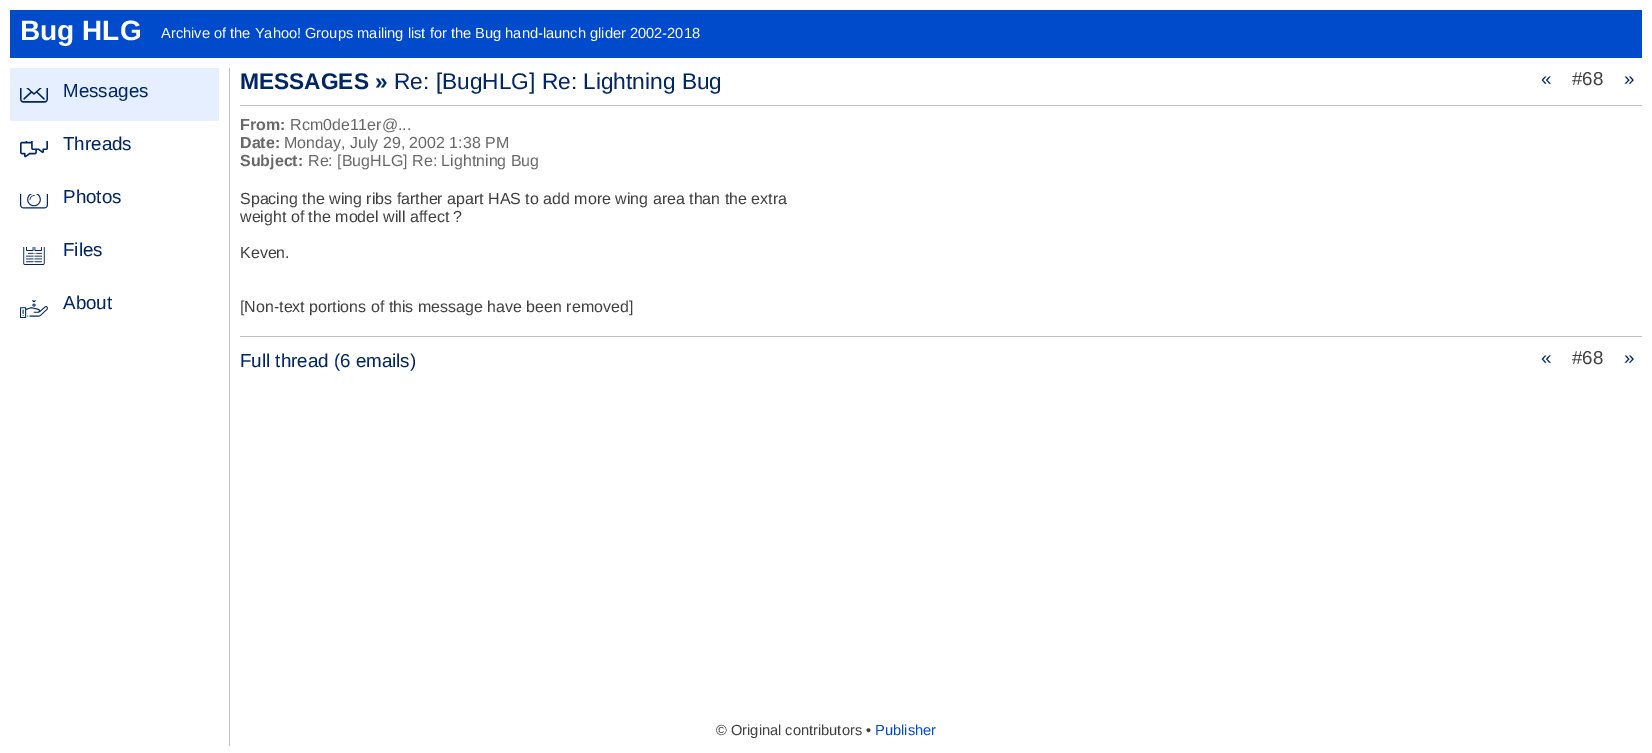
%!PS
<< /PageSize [1652 753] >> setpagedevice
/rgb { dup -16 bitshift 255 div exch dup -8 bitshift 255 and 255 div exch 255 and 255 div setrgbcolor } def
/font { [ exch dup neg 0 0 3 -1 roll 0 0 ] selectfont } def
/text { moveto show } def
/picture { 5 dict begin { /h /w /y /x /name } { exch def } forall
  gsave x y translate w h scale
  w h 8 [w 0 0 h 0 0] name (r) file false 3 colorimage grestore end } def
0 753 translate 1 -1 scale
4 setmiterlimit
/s1 { /LiberationSans-Bold 28 font 16#FFFFFF rgb } def
/s2 { /LiberationSans-Regular 14.65 font 16#FFFFFF rgb } def
/s3 { /LiberationSans-Regular 18.75 font 16#002666 rgb } def
/s4 { /LiberationSans-Bold 22.7 font 16#002666 rgb } def
/s5 { /LiberationSans-Regular 22.7 font 16#002666 rgb } def
/s6 { /LiberationSans-Regular 18.75 font 16#404040 rgb } def
/s7 { /LiberationSans-Bold 16 font 16#686868 rgb } def
/s8 { /LiberationSans-Regular 16 font 16#686868 rgb } def
/s9 { /LiberationSans-Regular 16 font 16#404040 rgb } def
/s10 { /LiberationSans-Regular 14.65 font 16#404040 rgb } def
/s11 { /LiberationSans-Regular 14.65 font 16#004BCC rgb } def
16#FFFFFF rgb
0 0 1652 753 rectfill
16#004BCC rgb
10 10 1632 48 rectfill
s1
(Bug HLG) 20 40 text
s2
(Archive of the Yahoo! Groups mailing list for the Bug hand-launch glider 2002-2018) 161 38 text
16#C0C0C0 rgb
229 68 1 678 rectfill
16#E6EFFF rgb
10 68 209 53 rectfill
(pic1.raw) 20 88 28 15 picture
s3
(Messages) 63 97 text
(pic2.raw) 20 141 28 17 picture
(Threads) 63 150 text
(pic3.raw) 20 194 28 15 picture
(Photos) 63 203 text
(pic4.raw) 23 247 22 18 picture
(Files) 63 256 text
(pic5.raw) 20 300 28 18 picture
(About) 63 309 text
16#C0C0C0 rgb
240 105 1402 1 rectfill
s4
(MESSAGES ») 240 89 text
s5
(Re: [BugHLG] Re: Lightning Bug) 394 89 text
s3
(«) 1541 85 text
s6
(#68) 1572 85 text
s3
(») 1624 85 text
s7
(From:) 240 130 text
s8
(Rcm0de11er@...) 290 130 text
s7
(Date:) 240 148 text
s8
(Monday, July 29, 2002 1:38 PM) 284 148 text
s7
(Subject:) 240 166 text
s8
(Re: [BugHLG] Re: Lightning Bug) 308 166 text
s9
(Spacing the wing ribs farther apart HAS to add more wing area than the extra) 240 204 text
(weight of the model will affect ?) 240 222 text
(Keven.) 240 258 text
([Non-text portions of this message have been removed]) 240 312 text
16#C0C0C0 rgb
240 336 1402 1 rectfill
s3
(Full thread \(6 emails\)) 240 367 text
(«) 1541 364 text
s6
(#68) 1572 364 text
s3
(») 1624 364 text
s10
(© Original contributors •) 716 735 text
s11
(Publisher) 875 735 text
showpage
